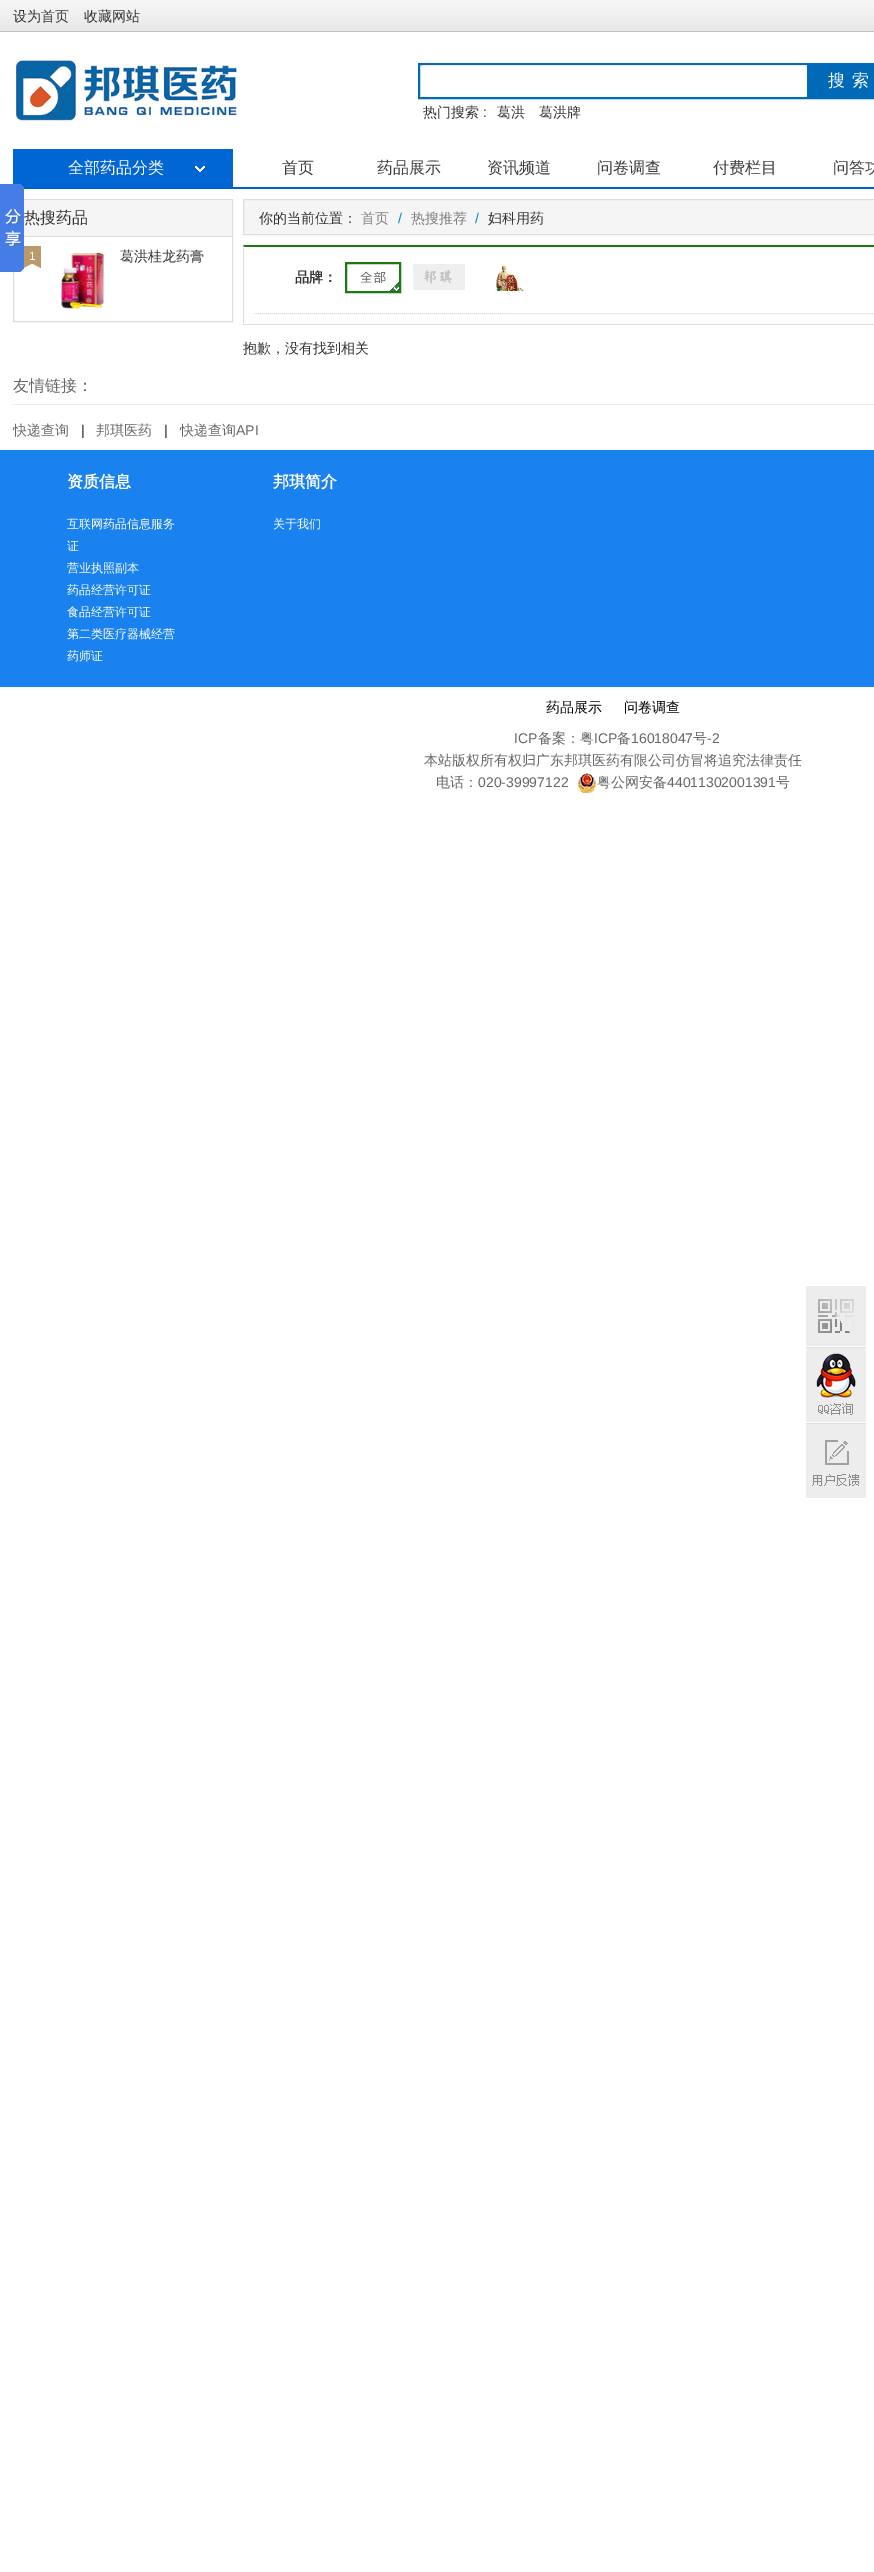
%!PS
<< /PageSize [874 2572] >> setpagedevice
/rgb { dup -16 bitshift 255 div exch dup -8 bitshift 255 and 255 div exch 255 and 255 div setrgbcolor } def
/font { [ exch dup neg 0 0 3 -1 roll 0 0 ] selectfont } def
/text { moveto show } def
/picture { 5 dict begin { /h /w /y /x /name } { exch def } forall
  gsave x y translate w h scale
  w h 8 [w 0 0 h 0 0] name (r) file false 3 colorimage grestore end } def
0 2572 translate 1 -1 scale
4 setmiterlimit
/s1 { /WenQuanYiZenHei-Medium 14 font 16#333333 rgb } def
/s2 { /LiberationSans-Regular 14 font 16#333333 rgb } def
/s3 { /WenQuanYiZenHei-Medium 16 font 16#FFFFFF rgb } def
/s4 { /WenQuanYiZenHei-Medium 16 font 16#3C3C3C rgb } def
/s5 { /WenQuanYiZenHei-Medium 16 font 16#333333 rgb } def
/s6 { /LiberationSans-Regular 12 font 16#FFFFFF rgb } def
/s7 { /WenQuanYiZenHei-Medium 14 font 16#7E7E7E rgb } def
/s8 { /LiberationSans-Regular 14 font 16#0081CC rgb } def
/s9 { /WenQuanYiZenHei-Bold 14 font 16#333333 rgb } def
/s10 { /WenQuanYiZenHei-Medium 16 font 16#666666 rgb } def
/s11 { /WenQuanYiZenHei-Medium 14 font 16#666666 rgb } def
/s12 { /LiberationSans-Regular 14 font 16#666666 rgb } def
/s13 { /WenQuanYiZenHei-Bold 16 font 16#FFFFFF rgb } def
/s14 { /WenQuanYiZenHei-Medium 12 font 16#FFFFFF rgb } def
/s15 { /WenQuanYiZenHei-Medium 14 font 16#000000 rgb } def
16#FFFFFF rgb
0 0 874 2572 rectfill
(pic1.raw) 0 0 874 31 picture
16#C0C0C0 rgb
0 31 874 1 rectfill
s1
(设为首页) 13 21 text
(收藏网站) 84 21 text
16#0066D4 rgb
13 149 220 38 rectfill
16#DDDDDD rgb
13.5 199.5 219 122 rectstroke
(pic2.raw) 0 184 24 88 picture
(pic3.raw) 16 60 221 61 picture
16#006AB9 rgb
2 setlinewidth
419 64 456 34 rectstroke
16#ECECEC rgb
424 66 moveto 806 66 lineto 808 66 810 68 810 70 curveto 810 67 809 65 806 65 curveto 424 65 lineto 421 65 420 67 420 70 curveto 420 68 422 66 424 66 curveto closepath fill
16#006AB9 rgb
807 65 67 32 rectfill
/WenQuanYiZenHei-Medium 17 font
16#FFFFFF rgb
828 86 moveto 1 0 (搜 索) ashow
s1
(热门搜索) 423 117 text
s2
(:) 483 117 text
s1
(葛洪) 497 117 text
(葛洪牌) 539 117 text
16#0063CD rgb
24 187 850 2 rectfill
s3
(全部药品分类) 68 173 text
(pic4.raw) 195 166 10 6 picture
s4
(首页) 282 173 text
(药品展示) 377 173 text
(资讯频道) 487 173 text
(问卷调查) 597 173 text
(付费栏目) 713 173 text
(问答功) 833 173 text
16#F5F5F5 rgb
24 200 208 36 rectfill
16#DDDDDD rgb
24 236 208 1 rectfill
s5
(热搜药品) 24 223 text
(pic5.raw) 24 246 17 22 picture
s6
(1) 29 260 text
(pic6.raw) 61 252 43 58 picture
s1
(葛洪桂龙药膏) 120 261 text
16#F5F5F5 rgb
243.5 199.5 moveto 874.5 199.5 lineto 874.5 234.5 lineto 243.5 234.5 lineto closepath gsave fill grestore
16#DDDDDD rgb
1 setlinewidth
stroke
s1
(你的当前位置：) 259 223 text
s7
(首页) 361 223 text
s8
(/) 398 223 text
s7
(热搜推荐) 411 223 text
s8
(/) 475 223 text
s1
(妇科用药) 488 223 text
16#1B7911 rgb
243 245 moveto 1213 245 lineto 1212 247 lineto 244 247 lineto closepath fill
16#DDDDDD rgb
243 324 631 1 rectfill
243 325 moveto 243 245 lineto 244 247 lineto 244 324 lineto closepath fill
16#DCDCDC rgb
[1 1] 0 setdash
254 313.5 moveto 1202 313.5 lineto stroke
s9
(品牌：) 295 282 text
16#1B7911 rgb
2 setlinewidth
[] 0 setdash
346 263 54 29 rectstroke
(pic7.raw) 360 271 26 12 picture
(pic8.raw) 390 282 9 9 picture
(pic9.raw) 413 264 52 26 picture
(pic10.raw) 494 265 30 26 picture
s1
(抱歉，没有找到相关) 243 353 text
16#EEEEEE rgb
13 404 861 1 rectfill
s10
(友情链接：) 13 391 text
s11
(快递查询) 13 435 text
s2
(|) 81 435 text
s11
(邦琪医药) 96 435 text
s2
(|) 164 435 text
s11
(快递查询) 180 435 text
s12
(API) 236 435 text
(pic11.raw) 806 1286 60 60 picture
16#DDDDDD rgb
806 1347 60 1 rectfill
(pic12.raw) 806 1348 60 74 picture
806 1423 60 1 rectfill
(pic13.raw) 806 1424 60 74 picture
16#1A82EE rgb
0 450 874 237 rectfill
s13
(资质信息) 67 487 text
s14
(互联网药品信息服务) 67 528 text
(证) 67 550 text
(营业执照副本) 67 572 text
(药品经营许可证) 67 594 text
(食品经营许可证) 67 616 text
(第二类医疗器械经营) 67 638 text
(药师证) 67 660 text
s13
(邦琪简介) 273 487 text
s14
(关于我们) 273 528 text
s15
(药品展示) 546 712 text
(问卷调查) 624 712 text
s12
(ICP) 514 743 text
s11
(备案：粤) 538 743 text
s12
(ICP) 594 743 text
s11
(备) 617 743 text
s12
(16018047) 631 743 text
s11
(号) 693 743 text
s12
(-2) 707 743 text
s11
(本站版权所有权归广东邦琪医药有限公司仿冒将追究法律责任) 424 765 text
(电话：) 436 787 text
s12
(020-39997122) 478 787 text
(pic14.raw) 578 773 18 20 picture
s11
(粤公网安备) 597 787 text
s12
(44011302001391) 667 787 text
s11
(号) 776 787 text
showpage
